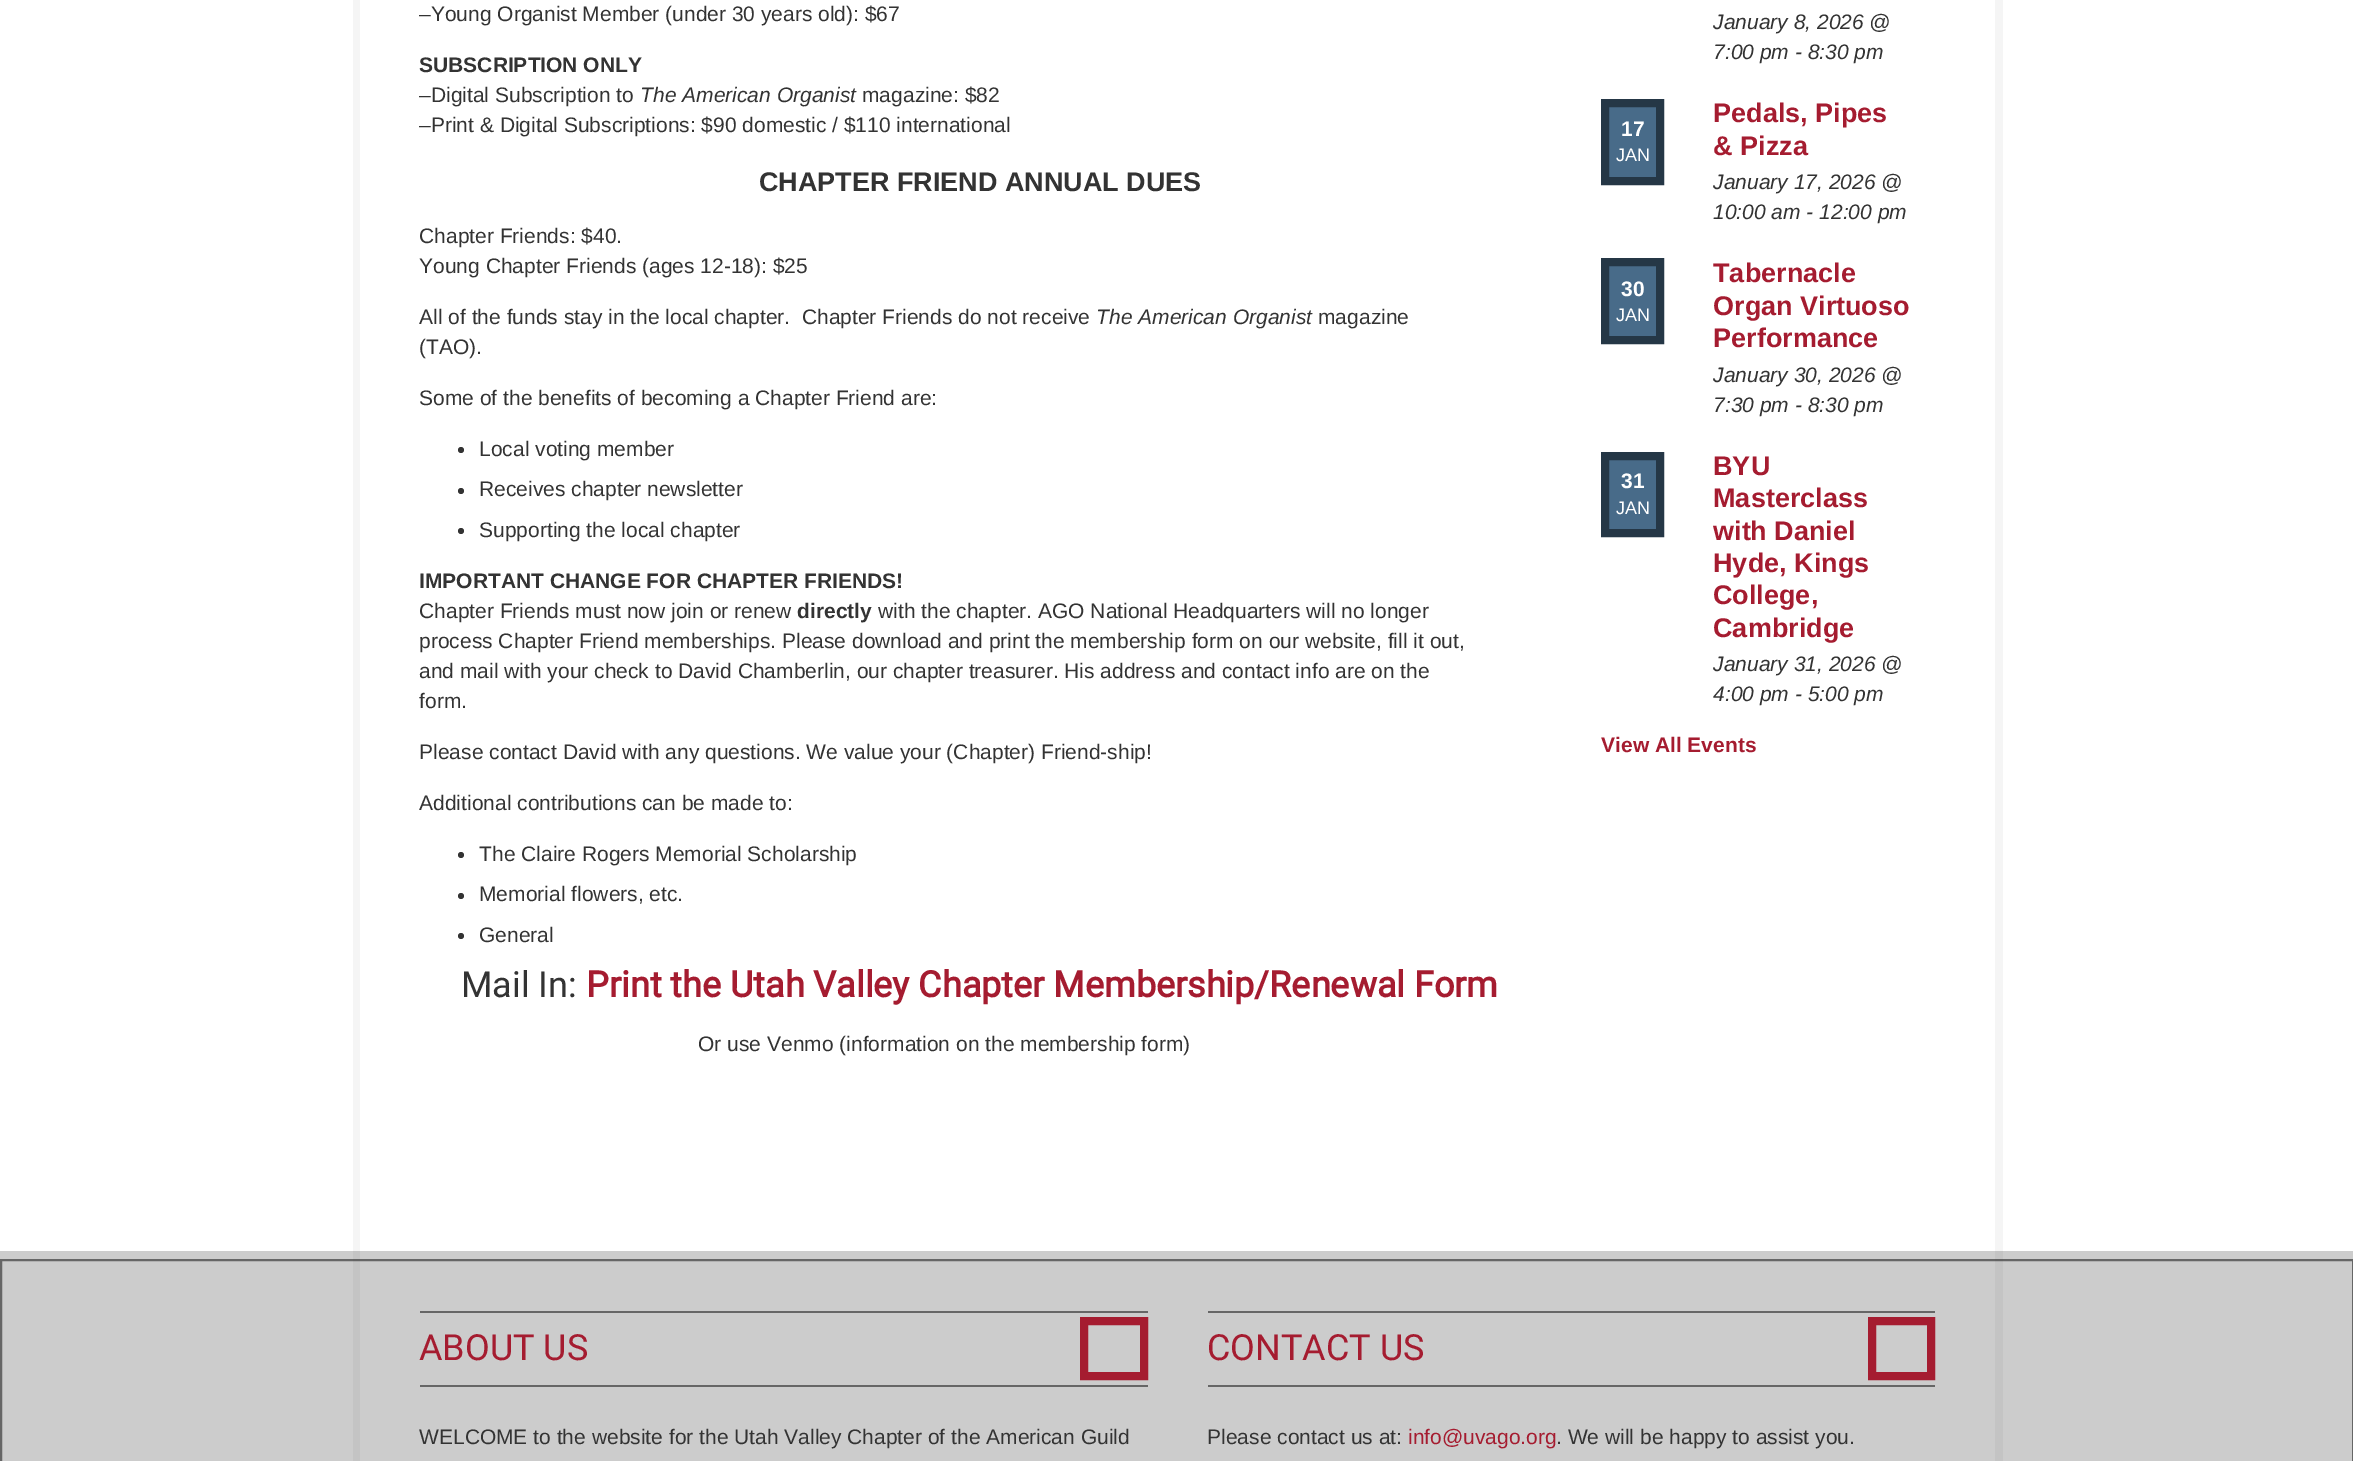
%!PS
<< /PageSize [2353 1461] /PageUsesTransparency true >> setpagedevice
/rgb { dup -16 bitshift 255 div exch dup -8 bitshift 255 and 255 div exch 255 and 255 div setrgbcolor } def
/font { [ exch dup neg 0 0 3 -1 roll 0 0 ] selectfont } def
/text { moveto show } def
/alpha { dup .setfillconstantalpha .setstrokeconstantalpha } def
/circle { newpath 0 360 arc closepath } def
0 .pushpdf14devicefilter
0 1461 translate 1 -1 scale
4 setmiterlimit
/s1 { /LiberationSans-Regular 21 font 16#333333 rgb } def
/s2 { /LiberationSans-Bold 21 font 16#333333 rgb } def
/s3 { /LiberationSans-Italic 21 font 16#333333 rgb } def
/s4 { /LiberationSans-Bold 27 font 16#333333 rgb } def
/s5 { /Roboto-Regular 36 font 16#333333 rgb } def
/s6 { /Roboto-Bold 36 font 16#A51C30 rgb } def
/s7 { /LiberationSans-Bold 21 font 16#FFFFFF rgb } def
/s8 { /LiberationSans-Regular 18 font 16#FFFFFF rgb } def
/s9 { /LiberationSans-Bold 27 font 16#A51C30 rgb } def
/s10 { /LiberationSans-Bold 21 font 16#A51C30 rgb } def
/s11 { /Roboto-Regular 36 font 16#A51C30 rgb } def
/s12 { /LiberationSans-Regular 21 font 16#A51C30 rgb } def
16#FFFFFF rgb
0 0 2353 1461 rectfill
16#F5F5F5 rgb
1995 0 8 1251 rectfill
353 0 7 1251 rectfill
s1
(–Young Organist Member \(under 30 years old\): $67) 419 21 text
s2
(SUBSCRIPTION ONLY) 419 72 text
s1
(–Digital Subscription to) 419 102 text
s3
(The American Organist) 640 102 text
s1
(magazine: $82) 862 102 text
(–Print & Digital Subscriptions: $90 domestic / $110 international) 419 132 text
s4
(CHAPTER FRIEND ANNUAL DUES) 759 191 text
s1
(Chapter Friends: $40.) 419 243 text
(Young Chapter Friends \(ages 12-18\): $25) 419 273 text
(All of the funds stay in the local chapter.  Chapter Friends do not receive) 419 324 text
s3
(The American Organist) 1096 324 text
s1
(magazine) 1318 324 text
(\(TAO\).) 419 354 text
(Some of the benefits of becoming a Chapter Friend are:) 419 405 text
461 450 3 circle fill
(Local voting member) 479 456 text
461 491 3 circle fill
(Receives chapter newsletter) 479 496 text
461 531 3 circle fill
(Supporting the local chapter) 479 537 text
s2
(IMPORTANT CHANGE FOR CHAPTER FRIENDS!) 419 588 text
s1
(Chapter Friends must now join or renew) 419 618 text
s2
(directly) 797 618 text
s1
(with the chapter. AGO National Headquarters will no longer) 878 618 text
(process Chapter Friend memberships. Please download and print the membership form on our website, fill it out,) 419 648 text
(and mail with your check to David Chamberlin, our chapter treasurer. His address and contact info are on the) 419 678 text
(form.) 419 708 text
(Please contact David with any questions. We value your \(Chapter\) Friend-ship!) 419 759 text
(Additional contributions can be made to:) 419 810 text
461 855 3 circle fill
(The Claire Rogers Memorial Scholarship) 479 861 text
461 896 3 circle fill
(Memorial flowers, etc.) 479 901 text
461 936 3 circle fill
(General) 479 942 text
s5
(Mail In:) 461 997 text
s6
(Print the Utah Valley Chapter Membership/Renewal Form) 586 997 text
s1
(Or use Venmo \(information on the membership form\)) 698 1051 text
s3
(January 8, 2026 @) 1713 29 text
(7:00 pm - 8:30 pm) 1713 59 text
16#486B89 rgb
1605 103 moveto 1660 103 lineto 1660 181 lineto 1605 181 lineto closepath gsave fill grestore
16#253746 rgb
8 setlinewidth
stroke
s7
(17) 1621 136 text
s8
(JAN) 1616 161 text
s9
(Pedals, Pipes) 1713 122 text
(& Pizza) 1713 155 text
s3
(January 17, 2026 @) 1713 189 text
(10:00 am - 12:00 pm) 1713 219 text
16#486B89 rgb
1605 262 moveto 1660 262 lineto 1660 340 lineto 1605 340 lineto closepath gsave fill grestore
16#253746 rgb
stroke
s7
(30) 1621 296 text
s8
(JAN) 1616 321 text
s9
(Tabernacle) 1713 282 text
(Organ Virtuoso) 1713 315 text
(Performance) 1713 347 text
s3
(January 30, 2026 @) 1713 382 text
(7:30 pm - 8:30 pm) 1713 412 text
16#486B89 rgb
1605 456 moveto 1660 456 lineto 1660 533 lineto 1605 533 lineto closepath gsave fill grestore
16#253746 rgb
stroke
s7
(31) 1621 488 text
s8
(JAN) 1616 514 text
s9
(BYU) 1713 475 text
(Masterclass) 1713 507 text
(with Daniel) 1713 540 text
(Hyde, Kings) 1713 572 text
(College,) 1713 604 text
(Cambridge) 1713 637 text
s3
(January 31, 2026 @) 1713 671 text
(4:00 pm - 5:00 pm) 1713 701 text
s10
(View All Events) 1601 752 text
16#CCCCCC rgb
0 1251 2353 210 rectfill
16#666666 rgb
2 setlinewidth
1 1260 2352 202 rectstroke
0.05 alpha
16#333333 rgb
1995 1251 8 210 rectfill
353 1251 7 210 rectfill
1 alpha
16#666666 rgb
420 1311 728 2 rectfill
420 1385 728 2 rectfill
s11
(ABOUT US) 419 1360 text
8 setlinewidth
1084 1321 60 55 rectstroke
s1
(WELCOME to the website for the Utah Valley Chapter of the American Guild) 419 1444 text
16#666666 rgb
1208 1311 727 2 rectfill
1208 1385 727 2 rectfill
s11
(CONTACT US) 1207 1360 text
1872 1321 59 55 rectstroke
s1
(Please contact us at:) 1207 1444 text
s12
(info@uvago.org) 1408 1444 text
s1
(. We will be happy to assist you.) 1556 1444 text
.poppdf14devicefilter showpage
